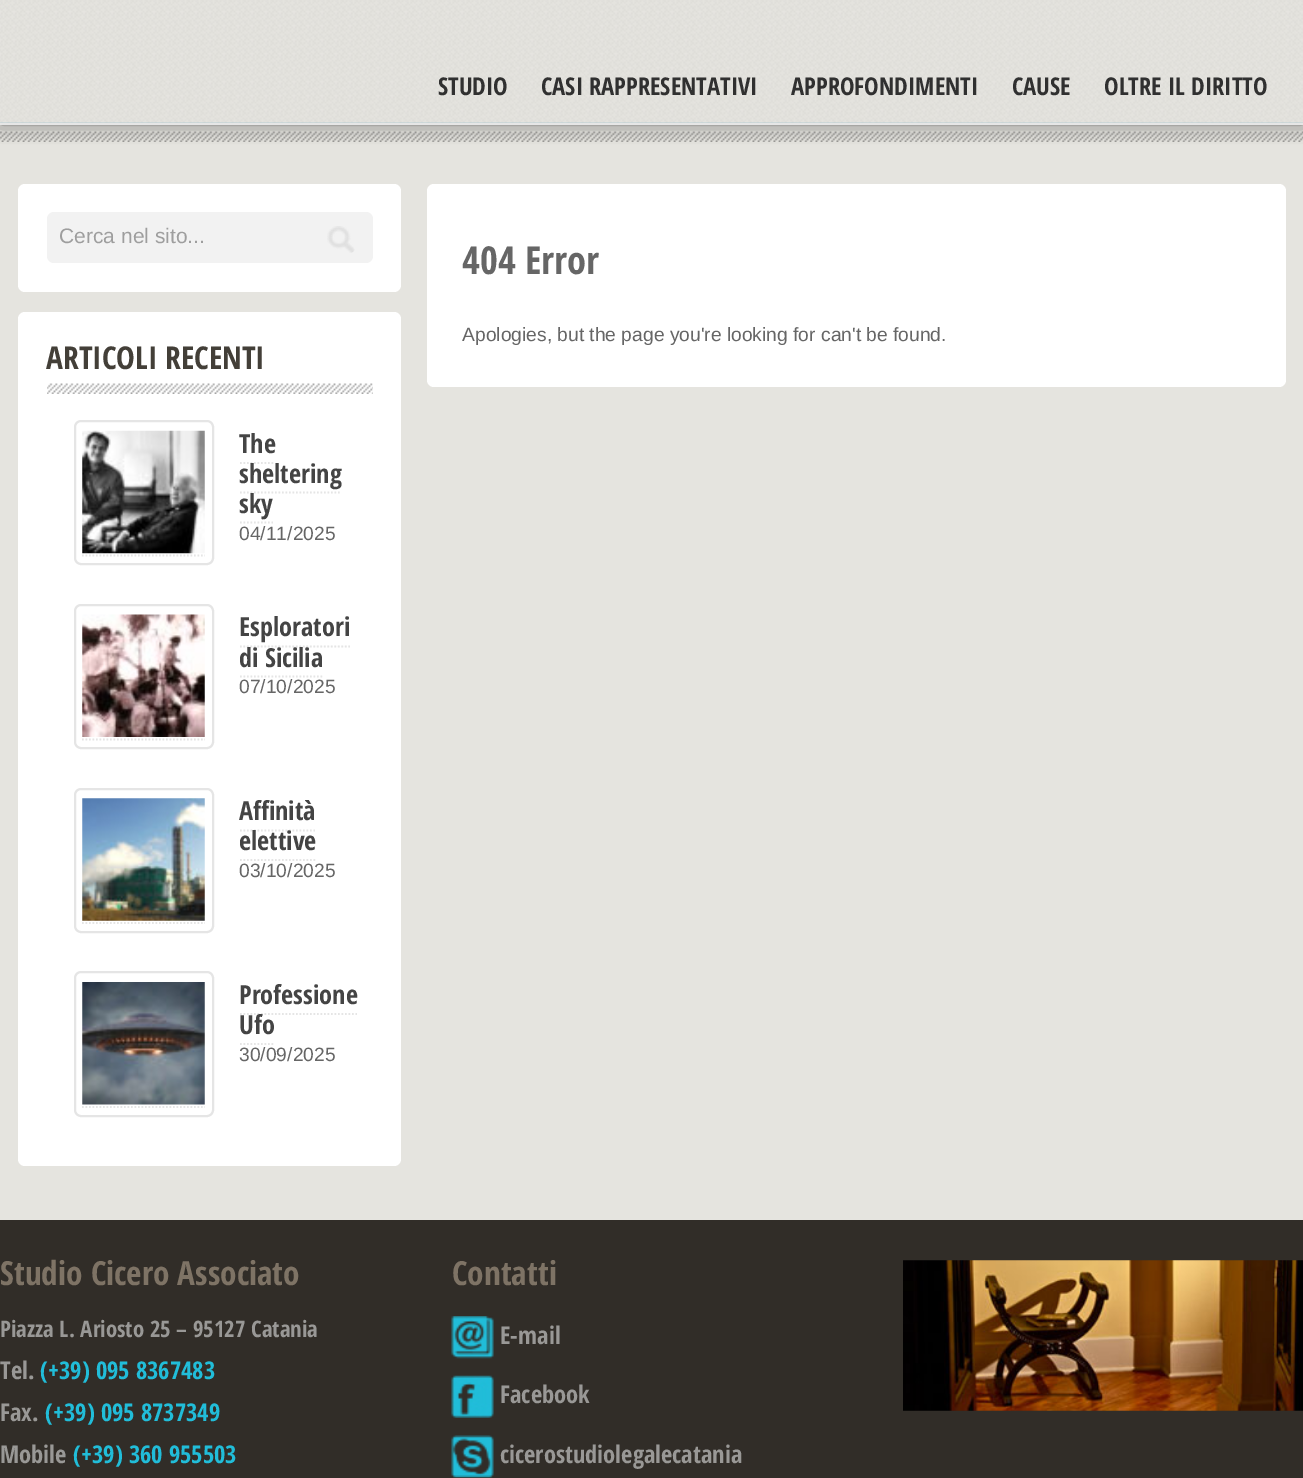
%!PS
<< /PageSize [1303 1478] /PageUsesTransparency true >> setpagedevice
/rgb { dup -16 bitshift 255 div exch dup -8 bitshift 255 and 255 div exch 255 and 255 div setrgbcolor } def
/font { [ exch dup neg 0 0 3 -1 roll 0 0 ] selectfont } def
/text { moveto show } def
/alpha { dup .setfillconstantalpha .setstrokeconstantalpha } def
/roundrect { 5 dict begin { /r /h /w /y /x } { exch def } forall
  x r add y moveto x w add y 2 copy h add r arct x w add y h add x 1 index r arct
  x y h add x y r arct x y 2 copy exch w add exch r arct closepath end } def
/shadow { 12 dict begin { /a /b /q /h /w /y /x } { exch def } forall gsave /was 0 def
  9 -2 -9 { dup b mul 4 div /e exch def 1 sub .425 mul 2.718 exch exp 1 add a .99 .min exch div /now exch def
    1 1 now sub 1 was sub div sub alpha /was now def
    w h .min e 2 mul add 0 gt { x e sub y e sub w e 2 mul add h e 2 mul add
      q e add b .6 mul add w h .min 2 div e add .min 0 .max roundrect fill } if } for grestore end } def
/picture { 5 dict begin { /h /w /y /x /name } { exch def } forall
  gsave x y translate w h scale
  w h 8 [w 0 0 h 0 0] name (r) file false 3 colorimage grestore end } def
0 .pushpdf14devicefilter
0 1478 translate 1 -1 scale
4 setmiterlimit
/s1 { /OpenSansCondensed-Bold 24.5 font 16#303030 rgb } def
/s2 { /LiberationSans-Regular 21 font 16#9E9E9E rgb } def
/s3 { /OpenSansCondensed-Bold 31.5 font 16#433F38 rgb } def
/s4 { /OpenSansCondensed-Bold 26.25 font 16#444444 rgb } def
/s5 { /LiberationSans-Regular 19.25 font 16#666666 rgb } def
/s6 { /OpenSansCondensed-Bold 38.5 font 16#666666 rgb } def
/s7 { /OpenSansCondensed-Bold 33.25 font 16#7E7365 rgb } def
/s8 { /OpenSansCondensed-Bold 22.75 font 16#999896 rgb } def
/s9 { /OpenSansCondensed-Bold 24.5 font 16#999896 rgb } def
/s10 { /OpenSansCondensed-Bold 24.5 font 16#21BDD9 rgb } def
16#E5E4DF rgb
0 0 1303 1478 rectfill
(pic2.raw) 0 131 1303 11 picture
16#666666 rgb
0 -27 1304 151 0 9 1 shadow
16#E6E6E6 rgb
0 123 1303 2 rectfill
(pic1.raw) 0 0 1303 123 picture
s1
(STUDIO) 438 95 text
(CASI RAPPRESENTATIVI) 541 95 text
(APPROFONDIMENTI) 791 95 text
(CAUSE) 1012 95 text
(OLTRE IL DIRITTO) 1104 95 text
16#FFFFFF rgb
18 184 383 108 7 roundrect fill
16#F2F2F2 rgb
47 212 326 51 7 roundrect fill
gsave
60 224 199 25 rectclip
s2
(Cerca nel sito...) 59 243 text
grestore
(pic3.raw) 327 226 28 27 picture
16#FFFFFF rgb
18 312 383 854 7 roundrect fill
(pic4.raw) 47 383 326 11 picture
s3
(ARTICOLI RECENTI) 46 369 text
16#E5E5E5 rgb
2 setlinewidth
75 421 138 143 6 roundrect stroke
1.8 setlinewidth
[1.75 1.75] 0 setdash
82 555.5 moveto 205 555.5 lineto stroke
(pic5.raw) 82 430 123 124 picture
s4
(The) 239 453 text
16#E5E5E5 rgb
240 463 moveto 275 463 lineto stroke
s4
(sheltering) 239 483 text
16#E5E5E5 rgb
240 492.5 moveto 341 492.5 lineto stroke
s4
(sky) 239 513 text
16#E5E5E5 rgb
240 522.5 moveto 273 522.5 lineto stroke
s5
(04/11/2025) 239 540 text
16#E5E5E5 rgb
2 setlinewidth
[] 0 setdash
75 605 138 143 6 roundrect stroke
1.8 setlinewidth
[1.75 1.75] 0 setdash
82 739.5 moveto 205 739.5 lineto stroke
(pic6.raw) 82 614 123 123 picture
s4
(Esploratori) 239 636 text
16#E5E5E5 rgb
240 646.5 moveto 350 646.5 lineto stroke
s4
(di Sicilia) 239 667 text
16#E5E5E5 rgb
240 676.5 moveto 324 676.5 lineto stroke
s5
(07/10/2025) 239 693 text
16#E5E5E5 rgb
2 setlinewidth
[] 0 setdash
75 789 138 143 6 roundrect stroke
1.8 setlinewidth
[1.75 1.75] 0 setdash
82 923 moveto 205 923 lineto stroke
(pic7.raw) 82 798 123 123 picture
s4
(Affinità) 239 820 text
16#E5E5E5 rgb
240 830.5 moveto 315 830.5 lineto stroke
s4
(elettive) 239 850 text
16#E5E5E5 rgb
240 860 moveto 317 860 lineto stroke
s5
(03/10/2025) 239 877 text
16#E5E5E5 rgb
2 setlinewidth
[] 0 setdash
75 972 138 144 6 roundrect stroke
1.8 setlinewidth
[1.75 1.75] 0 setdash
82 1107 moveto 205 1107 lineto stroke
(pic8.raw) 82 982 123 123 picture
s4
(Professione) 239 1004 text
16#E5E5E5 rgb
240 1014 moveto 357 1014 lineto stroke
s4
(Ufo) 239 1034 text
16#E5E5E5 rgb
240 1044 moveto 275 1044 lineto stroke
s5
(30/09/2025) 239 1061 text
16#FFFFFF rgb
427 184 859 203 7 roundrect fill
s6
(404 Error) 462 274 text
s5
(Apologies, but the page you're looking for can't be found.) 462 341 text
16#312D28 rgb
0 1220 1303 258 rectfill
s7
(Studio Cicero Associato) 0 1285 text
s8
(Piazza L. Ariosto 25 – 95127 Catania) 0 1337 text
s9
(Tel.) 0 1379 text
s10
(\(+39\) 095 8367483) 40 1379 text
s9
(Fax.) 0 1421 text
s10
(\(+39\) 095 8737349) 45 1421 text
s9
(Mobile) 0 1463 text
s10
(\(+39\) 360 955503) 73 1463 text
s7
(Contatti) 452 1285 text
(pic9.raw) 451 1316 43 43 picture
s9
(E-mail) 500 1344 text
(pic10.raw) 451 1375 43 43 picture
(Facebook) 500 1403 text
(pic11.raw) 451 1435 43 43 picture
(cicerostudiolegalecatania) 500 1463 text
(pic12.raw) 903 1260 400 151 picture
.poppdf14devicefilter showpage
